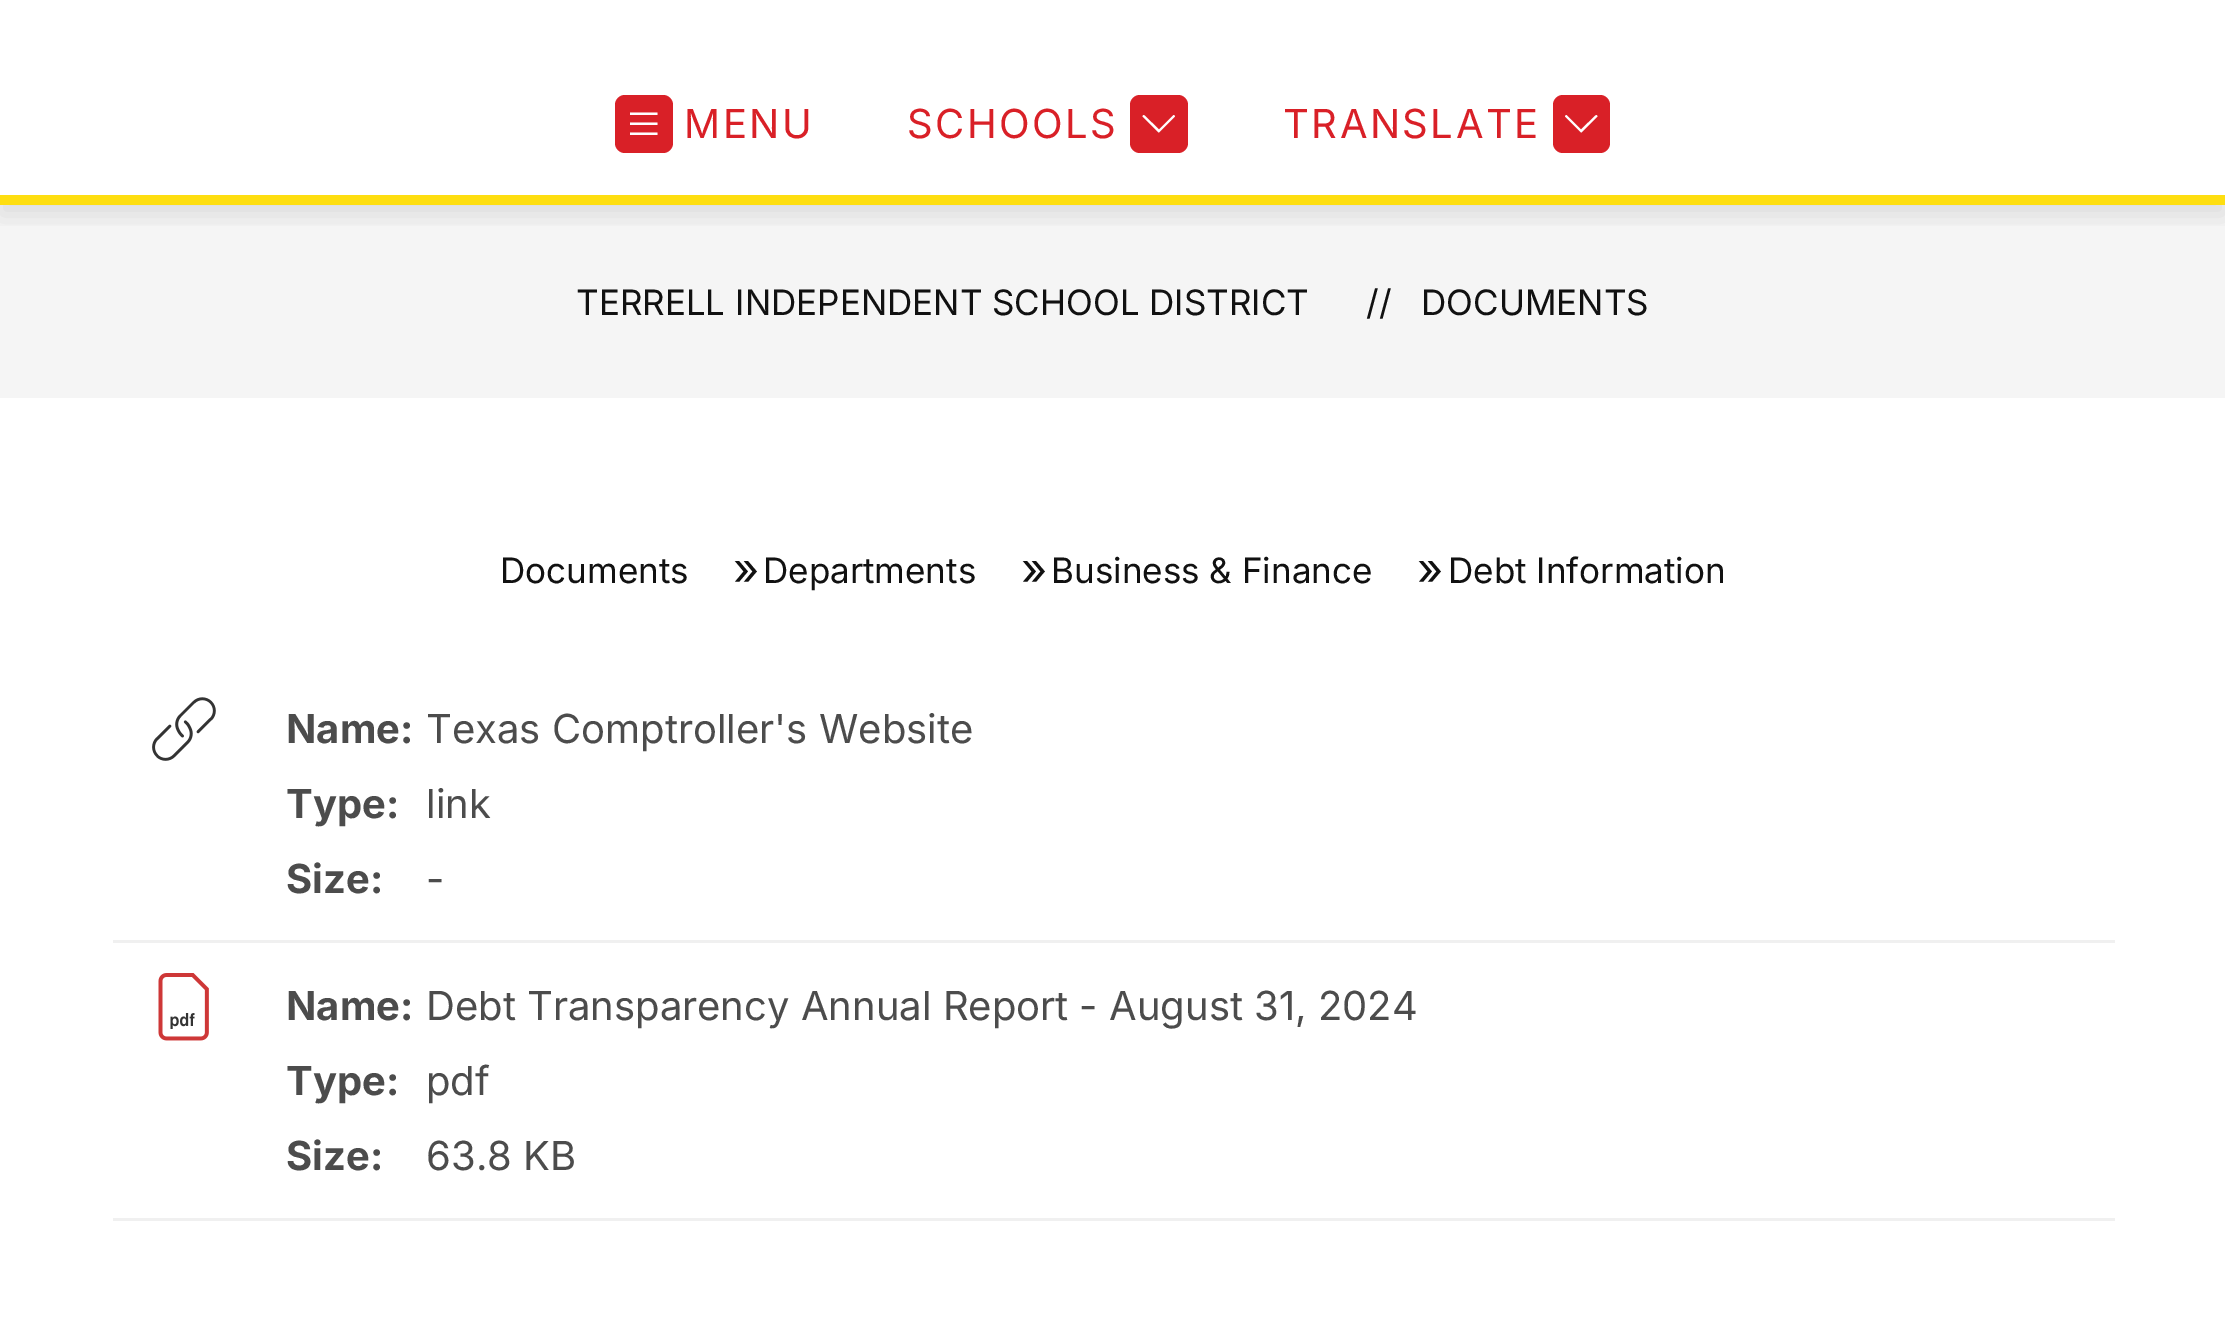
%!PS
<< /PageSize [2225 1323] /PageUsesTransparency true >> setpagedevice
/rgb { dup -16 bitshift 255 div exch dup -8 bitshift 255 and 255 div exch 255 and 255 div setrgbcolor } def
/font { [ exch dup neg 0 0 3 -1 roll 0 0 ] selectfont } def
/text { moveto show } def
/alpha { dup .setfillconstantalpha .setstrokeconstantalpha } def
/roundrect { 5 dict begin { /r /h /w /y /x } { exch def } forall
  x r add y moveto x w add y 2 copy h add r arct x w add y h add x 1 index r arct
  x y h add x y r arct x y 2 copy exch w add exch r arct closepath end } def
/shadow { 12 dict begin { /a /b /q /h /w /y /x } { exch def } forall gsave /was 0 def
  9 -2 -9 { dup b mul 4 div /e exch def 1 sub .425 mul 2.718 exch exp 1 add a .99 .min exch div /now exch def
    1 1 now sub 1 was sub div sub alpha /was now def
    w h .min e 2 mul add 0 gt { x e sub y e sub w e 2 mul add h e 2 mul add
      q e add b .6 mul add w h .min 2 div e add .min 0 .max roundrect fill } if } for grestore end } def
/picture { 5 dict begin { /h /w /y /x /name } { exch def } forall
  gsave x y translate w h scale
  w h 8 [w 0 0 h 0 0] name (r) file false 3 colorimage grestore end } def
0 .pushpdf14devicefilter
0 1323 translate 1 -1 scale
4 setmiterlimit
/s1 { /Inter-Regular 35 font 16#111111 rgb } def
/s2 { /Inter-Regular 45 font 16#111111 rgb } def
/s3 { /Inter-Bold 40 font 16#4C4C4C rgb } def
/s4 { /Inter-Regular 40 font 16#4C4C4C rgb } def
16#FFFFFF rgb
0 0 2225 1323 rectfill
16#F5F5F5 rgb
0 205 2225 193 rectfill
gsave
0 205 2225 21 rectclip
16#000000 rgb
0 -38 2225 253 0 12.5 0.1 shadow
grestore
16#FEDE10 rgb
0 195 2225 10 rectfill
16#D92027 rgb
615 95 58 58 10 roundrect fill
16#FFFFFF rgb
630 112.5 moveto 657.5 112.5 lineto 657.5 115 lineto 630 115 lineto closepath 630 122.5 moveto 657.5 122.5 lineto 657.5 125 lineto 630 125 lineto closepath 657.5 132.5 moveto 630 132.5 lineto 630 135 lineto 657.5 135 lineto closepath eofill
/Inter-Regular 40 font
16#D92027 rgb
684 138 moveto 2.5 0 (MENU) ashow
907 138 moveto 2.5 0 (SCHOOLS) ashow
1130 95 58 58 10 roundrect fill
16#FFFFFF rgb
1143 115.5 moveto 1143.5 115 1144 115 1144.5 115.5 curveto 1159 129.5 lineto 1173 115.5 lineto 1173.5 115 1174 115 1174.5 115.5 curveto 1175 116 1175 116.5 1174.5 117 curveto 1159.5 132 lineto 1159 132.5 1158.5 132.5 1158 132 curveto 1143 117 lineto 1142.5 116.5 1142.5 116 1143 115.5 curveto closepath eofill
16#D92027 rgb
1283 138 moveto 2.5 0 (TRANSLATE) ashow
1553 95 57 58 10 roundrect fill
16#FFFFFF rgb
1565.5 115.5 moveto 1566 115 1566.5 115 1567 115.5 curveto 1581 129.5 lineto 1595.5 115.5 lineto 1596 115 1596.5 115 1597 115.5 curveto 1597.5 116 1597.5 116.5 1597 117 curveto 1582 132 lineto 1581.5 132.5 1581 132.5 1580.5 132 curveto 1565.5 117 lineto 1565 116.5 1565 116 1565.5 115.5 curveto closepath eofill
s1
(TERRELL INDEPENDENT SCHOOL DISTRICT) 576 315 text
(//) 1366 315 text
(DOCUMENTS) 1421 315 text
(Documents) 500 583 text
s2
(») 733 585 text
s1
(Departments) 763 583 text
s2
(») 1021 585 text
s1
(Business & Finance) 1051 583 text
s2
(») 1417 585 text
s1
(Debt Information) 1448 583 text
16#F0F0F0 rgb
113 940 2002 3 rectfill
(pic1.raw) 152 697 64 64 picture
s3
(Name:) 286 743 text
s4
(Texas Comptroller's Website) 426 743 text
s3
(Type:) 286 818 text
s4
(link) 426 818 text
s3
(Size:) 286 893 text
s4
(-) 426 893 text
16#F0F0F0 rgb
113 1218 2002 3 rectfill
(pic2.raw) 158 973 51 68 picture
s3
(Name:) 286 1020 text
s4
(Debt Transparency Annual Report - August 31, 2024) 426 1020 text
s3
(Type:) 286 1095 text
s4
(pdf) 426 1095 text
s3
(Size:) 286 1170 text
s4
(63.8 KB) 426 1170 text
.poppdf14devicefilter showpage
